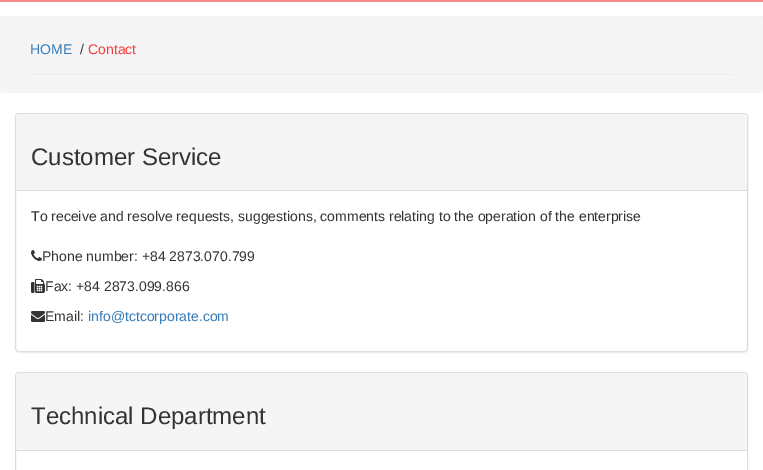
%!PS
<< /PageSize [763 470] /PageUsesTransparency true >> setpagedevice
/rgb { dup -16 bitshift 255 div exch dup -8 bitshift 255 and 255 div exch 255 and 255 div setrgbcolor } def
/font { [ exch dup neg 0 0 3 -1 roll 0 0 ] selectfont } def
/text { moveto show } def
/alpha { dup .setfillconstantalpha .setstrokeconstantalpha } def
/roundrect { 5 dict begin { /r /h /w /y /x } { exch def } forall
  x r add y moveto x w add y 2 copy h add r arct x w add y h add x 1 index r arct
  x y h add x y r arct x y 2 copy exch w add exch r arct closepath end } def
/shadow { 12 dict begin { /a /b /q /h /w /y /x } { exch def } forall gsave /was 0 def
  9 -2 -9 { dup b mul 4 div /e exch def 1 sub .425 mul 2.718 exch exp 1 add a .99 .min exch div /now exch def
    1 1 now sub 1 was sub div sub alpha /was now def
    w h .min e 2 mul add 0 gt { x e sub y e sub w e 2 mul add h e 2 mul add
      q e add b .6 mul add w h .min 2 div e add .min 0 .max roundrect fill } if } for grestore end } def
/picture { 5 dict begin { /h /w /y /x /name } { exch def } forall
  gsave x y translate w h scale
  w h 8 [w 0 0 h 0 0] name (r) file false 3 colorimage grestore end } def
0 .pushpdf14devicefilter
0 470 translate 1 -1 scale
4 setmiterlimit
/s1 { /LiberationSans-Regular 14 font 16#337AB7 rgb } def
/s2 { /LiberationSans-Regular 14 font 16#333333 rgb } def
/s3 { /LiberationSans-Regular 14 font 16#F63C3D rgb } def
/s4 { /LiberationSans-Regular 24 font 16#333333 rgb } def
16#FFFFFF rgb
0 0 763 470 rectfill
gsave
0 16 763 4 rectclip
16#E6E6E6 rgb
0 2 763 16 0 3.5 1 shadow
grestore
16#FA8A8A rgb
0 0 763 2 rectfill
16#F5F5F5 rgb
0 16 763 77 4 roundrect fill
16#EBEBEB rgb
30 74 703 1 rectfill
s1
(HOME) 30 54 text
s2
(/) 80 54 text
s3
(Contact) 88 54 text
16#000000 rgb
15 114 733 239 4 0.5 0.05 shadow
16#FFFFFF rgb
15.5 113.5 732 238 3.5 roundrect gsave fill grestore
16#DDDDDD rgb
stroke
16#F5F5F5 rgb
19 114 moveto 744 114 lineto 745.5 114 747 115.5 747 117 curveto 747 191 lineto 16 191 lineto 16 117 lineto 16 115.5 17.5 114 19 114 curveto closepath fill
16#DDDDDD rgb
16 190 731 1 rectfill
s4
(Customer Service) 31 165 text
s2
(To receive and resolve requests, suggestions, comments relating to the operation of the enterprise) 31 221 text
(pic1.raw) 31 250 11 11 picture
(Phone number: +84 2873.070.799) 42 261 text
(pic2.raw) 31 279 14 14 picture
(Fax: +84 2873.099.866) 45 291 text
(pic3.raw) 31 311 14 11 picture
(Email:) 45 321 text
s1
(info@tctcorporate.com) 88 321 text
16#DDDDDD rgb
15.5 372.5 732 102 3.5 roundrect stroke
16#F5F5F5 rgb
19 373 moveto 744 373 lineto 745.5 373 747 374.5 747 376 curveto 747 451 lineto 16 451 lineto 16 376 lineto 16 374.5 17.5 373 19 373 curveto closepath fill
16#DDDDDD rgb
16 450 731 1 rectfill
s4
(Technical Department) 31 424 text
.poppdf14devicefilter showpage
